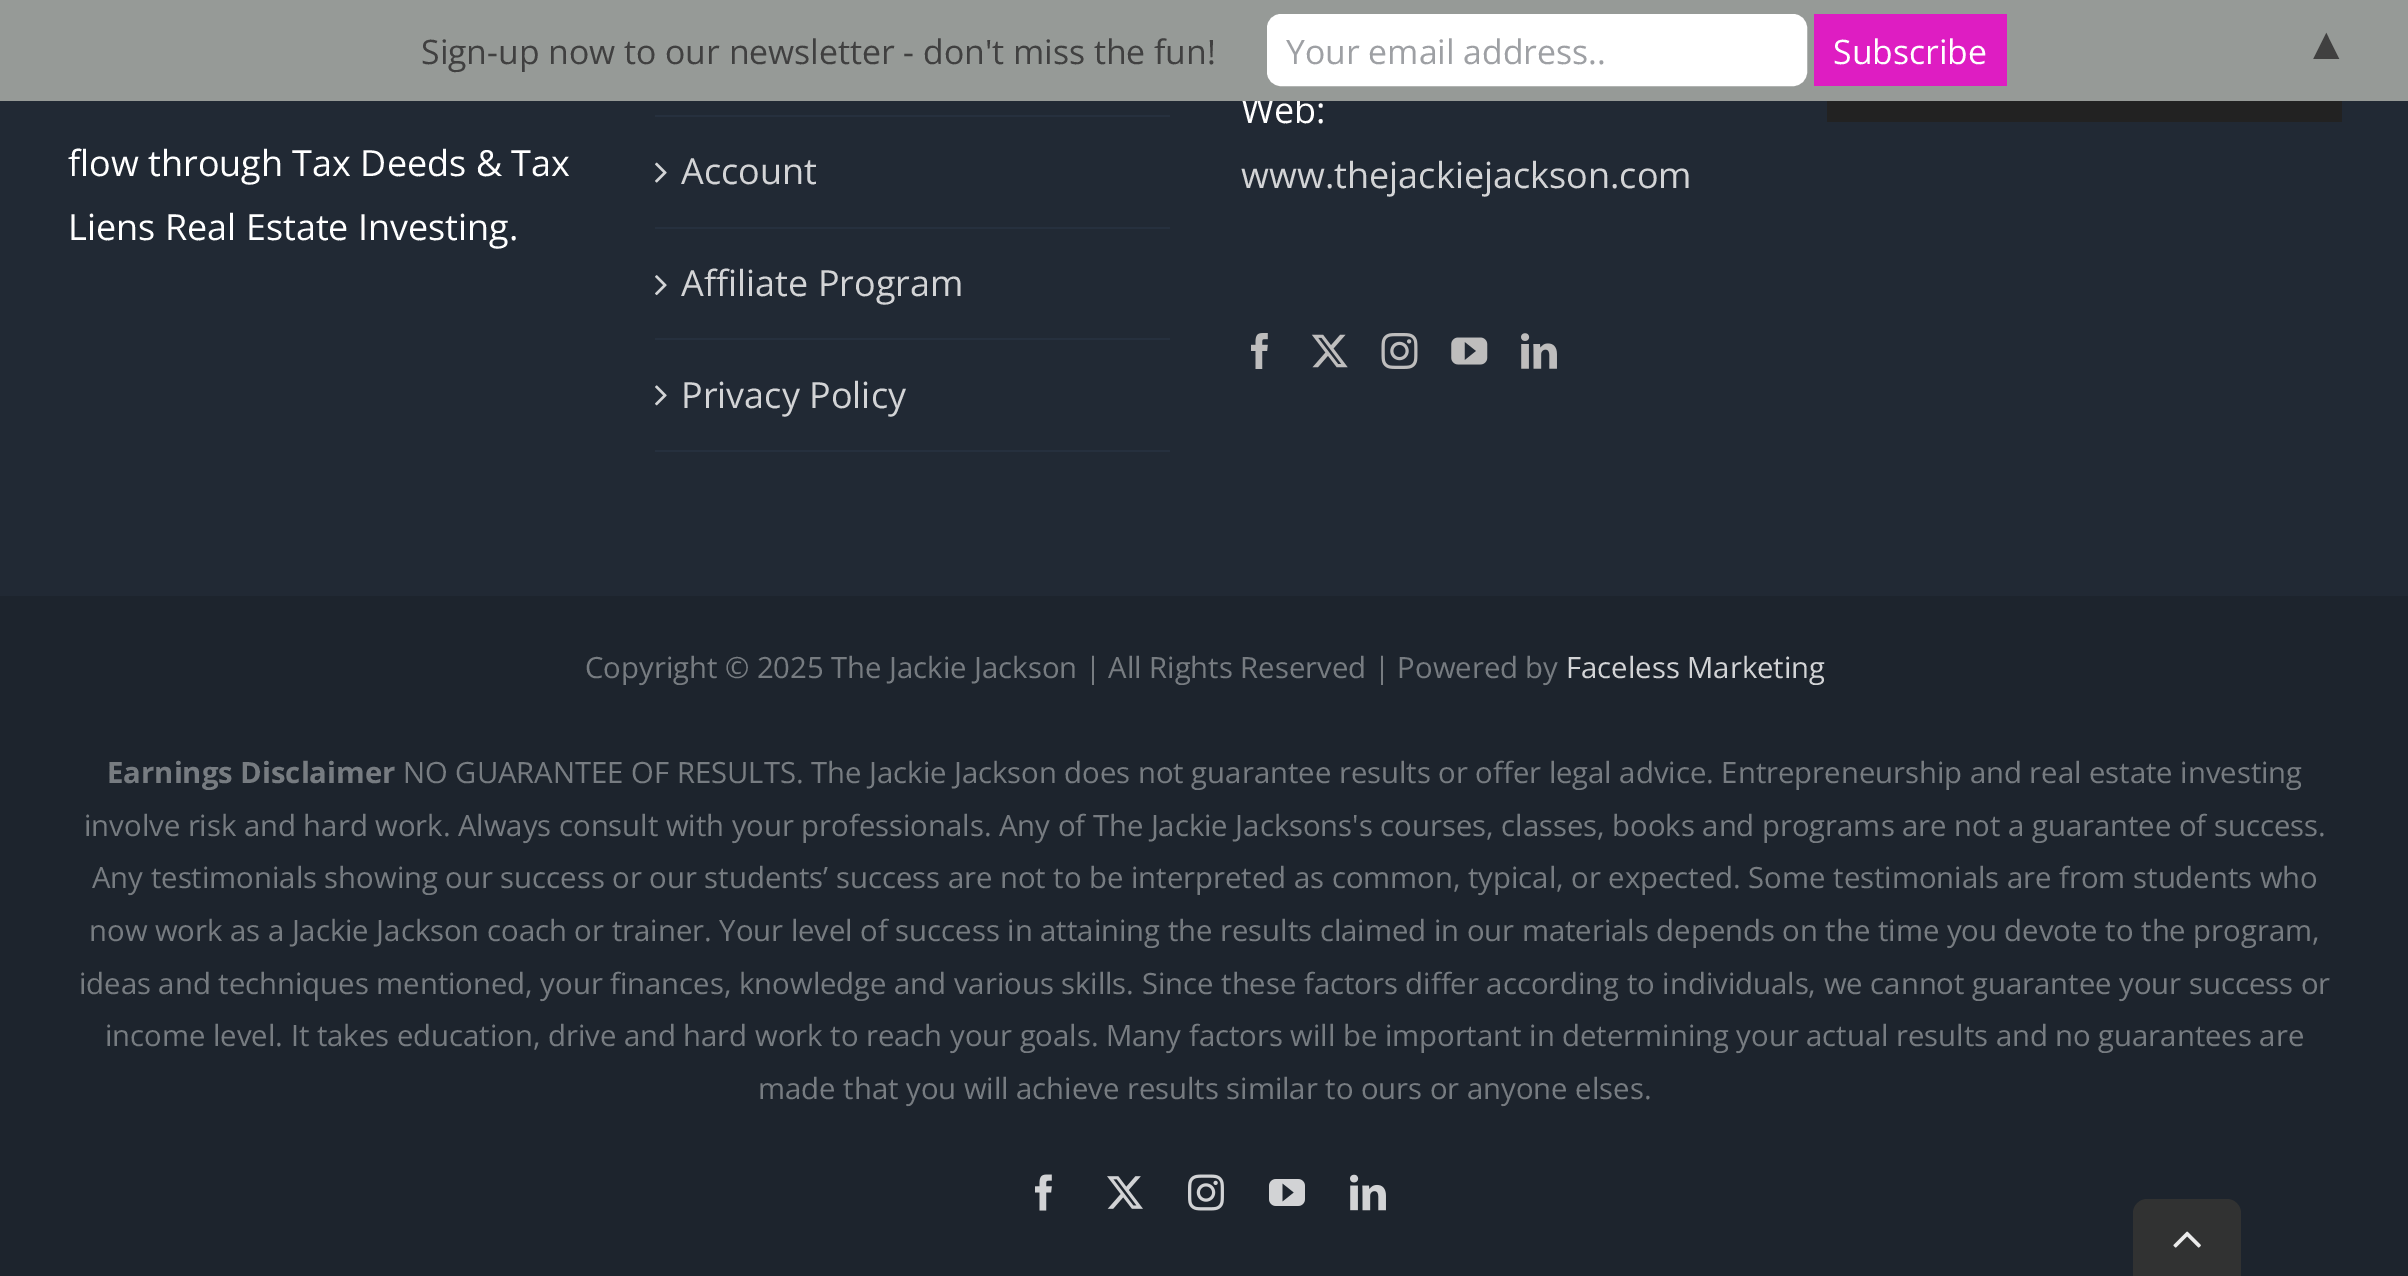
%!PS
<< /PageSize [2408 1276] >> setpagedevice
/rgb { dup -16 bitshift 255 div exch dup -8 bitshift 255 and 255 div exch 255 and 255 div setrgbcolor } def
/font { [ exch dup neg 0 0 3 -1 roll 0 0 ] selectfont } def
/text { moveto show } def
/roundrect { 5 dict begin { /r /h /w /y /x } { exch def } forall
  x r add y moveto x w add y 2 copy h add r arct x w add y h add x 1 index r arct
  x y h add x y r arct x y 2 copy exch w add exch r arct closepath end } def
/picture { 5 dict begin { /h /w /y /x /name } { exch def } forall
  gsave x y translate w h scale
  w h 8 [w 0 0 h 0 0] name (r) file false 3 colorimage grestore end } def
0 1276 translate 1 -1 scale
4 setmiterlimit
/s1 { /OpenSans-Regular 36 font 16#FFFFFF rgb } def
/s2 { /OpenSans-Regular 33.75 font 16#404040 rgb } def
/s3 { /OpenSans-Regular 33.75 font 16#9EA0A4 rgb } def
/s4 { /OpenSans-Regular 33.75 font 16#FFFFFF rgb } def
/s5 { /LiberationSerif-Regular 45 font 16#404040 rgb } def
/s6 { /OpenSans-Regular 36 font 16#D3D4D6 rgb } def
/s7 { /OpenSans-Regular 29.25 font 16#777C81 rgb } def
/s8 { /OpenSans-Regular 29.25 font 16#D3D4D6 rgb } def
/s9 { /OpenSans-Bold 29.25 font 16#777C81 rgb } def
16#212934 rgb
0 0 2408 1276 rectfill
s1
(Web:) 1241 123 text
16#969A97 rgb
0 0 2408 101 rectfill
s2
(Sign-up now to our newsletter - don't miss the fun!) 421 64 text
16#FFFFFF rgb
1268 15 538 70 13 roundrect gsave fill grestore
2 setlinewidth
stroke
s3
(Your email address..) 1286 64 text
16#DE1DC2 rgb
1814 14 193 72 rectfill
s4
(Subscribe) 1833 64 text
s5
(▲) 2304 59 text
s6
(www.thejackiejackson.com) 1241 188 text
(pic1.raw) 1251 333 17 36 picture
(pic2.raw) 1311 334 37 34 picture
(pic3.raw) 1381 333 37 36 picture
(pic4.raw) 1451 337 37 28 picture
(pic5.raw) 1521 333 36 36 picture
16#222222 rgb
1827 101 515 21 rectfill
s1
(flow through Tax Deeds & Tax) 68 176 text
(Liens Real Estate Investing.) 68 240 text
16#26303E rgb
655 115 515 2 rectfill
655 227 515 2 rectfill
(pic6.raw) 655 162 12 21 picture
s6
(Account) 681 184 text
16#26303E rgb
655 338 515 2 rectfill
(pic7.raw) 655 275 12 21 picture
s6
(Affiliate Program) 681 296 text
16#26303E rgb
655 450 515 2 rectfill
(pic8.raw) 655 385 12 21 picture
s6
(Privacy Policy) 681 408 text
16#1D242D rgb
0 596 2408 680 rectfill
s7
(Copyright © 2025 The Jackie Jackson | All Rights Reserved | Powered by) 585 678 text
s8
(Faceless Marketing) 1566 678 text
s9
(Earnings Disclaimer) 107 783 text
s7
(NO GUARANTEE OF RESULTS. The Jackie Jackson does not guarantee results or offer legal advice. Entrepreneurship and real estate investing) 403 783 text
(involve risk and hard work. Always consult with your professionals. Any of The Jackie Jacksons's courses, classes, books and programs are not a guarantee of success.) 84 836 text
(Any testimonials showing our success or our students’ success are not to be interpreted as common, typical, or expected. Some testimonials are from students who) 92 888 text
(now work as a Jackie Jackson coach or trainer. Your level of success in attaining the results claimed in our materials depends on the time you devote to the program,) 89 941 text
(ideas and techniques mentioned, your finances, knowledge and various skills. Since these factors differ according to individuals, we cannot guarantee your success or) 79 994 text
(income level. It takes education, drive and hard work to reach your goals. Many factors will be important in determining your actual results and no guarantees are) 105 1046 text
(made that you will achieve results similar to ours or anyone elses.) 758 1099 text
(pic9.raw) 1035 1174 17 37 picture
(pic10.raw) 1107 1176 36 33 picture
(pic11.raw) 1188 1174 36 37 picture
(pic12.raw) 1269 1179 36 27 picture
(pic13.raw) 1350 1174 36 37 picture
16#313232 rgb
2147 1199 moveto 2227 1199 lineto 2234.5 1199 2241 1205.5 2241 1213 curveto 2241 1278 lineto 2133 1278 lineto 2133 1213 lineto 2133 1205.5 2139.5 1199 2147 1199 curveto closepath fill
(pic14.raw) 2173 1231 28 17 picture
showpage
